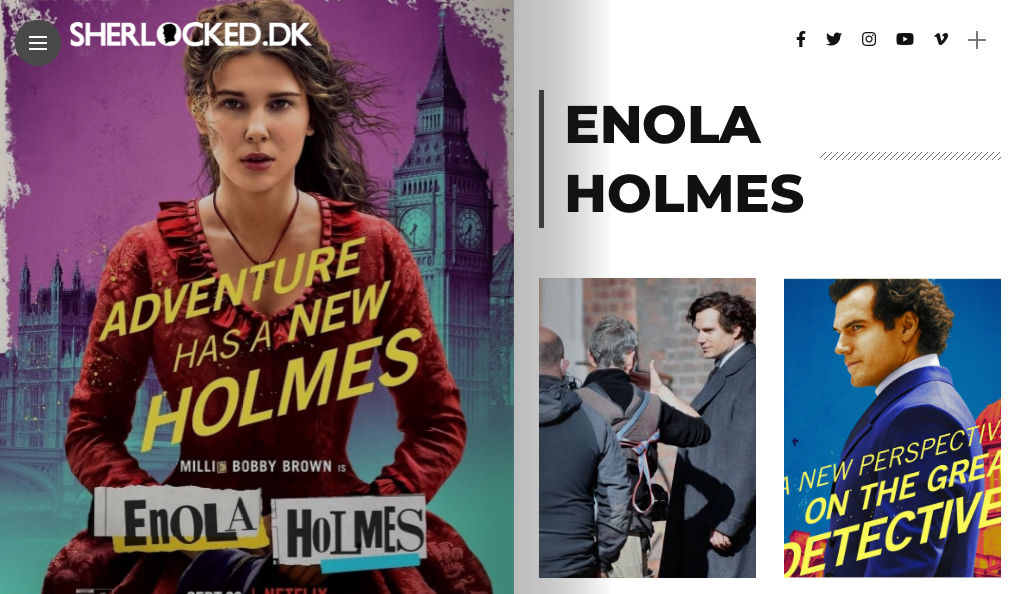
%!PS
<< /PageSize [1027 594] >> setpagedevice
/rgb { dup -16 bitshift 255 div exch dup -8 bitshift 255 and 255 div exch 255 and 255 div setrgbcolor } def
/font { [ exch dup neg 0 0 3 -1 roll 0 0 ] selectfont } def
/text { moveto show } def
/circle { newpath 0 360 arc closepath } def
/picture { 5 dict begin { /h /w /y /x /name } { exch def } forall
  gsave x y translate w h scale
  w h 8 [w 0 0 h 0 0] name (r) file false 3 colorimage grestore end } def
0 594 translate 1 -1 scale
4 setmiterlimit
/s1 { /Montserrat-ExtraBold 53 font 16#111111 rgb } def
16#FFFFFF rgb
0 0 1027 594 rectfill
(pic2.raw) 513 0 1 594 picture
(pic1.raw) 0 0 514 594 picture
16#494949 rgb
38 43 23 circle fill
16#FFFFFF rgb
29 36 18 2 rectfill
29 42 18 2 rectfill
29 48 18 2 rectfill
(pic3.raw) 70 22 242 25 picture
(pic4.raw) 420 0 94 594 picture
(pic5.raw) 796 31 10 16 picture
(pic6.raw) 826 32 16 14 picture
(pic7.raw) 862 32 15 14 picture
(pic8.raw) 896 33 18 12 picture
(pic9.raw) 934 33 14 13 picture
16#787878 rgb
968 39 18 2 rectfill
976 31 2 18 rectfill
16#494949 rgb
539 90 5 138 rectfill
s1
(ENOLA) 564 143 text
(HOLMES) 564 212 text
(pic12.raw) 539 278 217 300 picture
(pic10.raw) 514 0 97 594 picture
(pic11.raw) 820 152 181 8 picture
(pic13.raw) 784 278 217 300 picture
showpage
